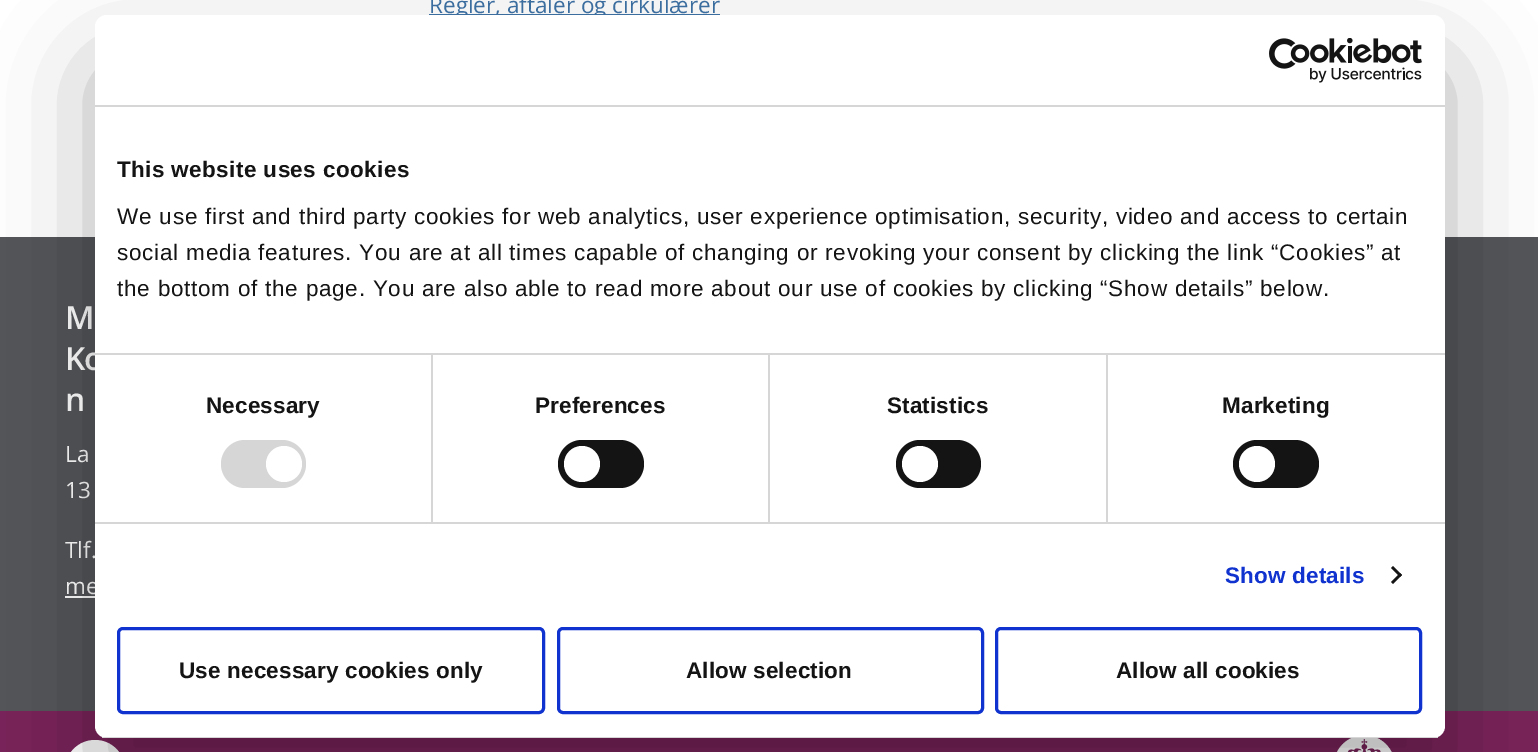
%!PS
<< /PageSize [1538 752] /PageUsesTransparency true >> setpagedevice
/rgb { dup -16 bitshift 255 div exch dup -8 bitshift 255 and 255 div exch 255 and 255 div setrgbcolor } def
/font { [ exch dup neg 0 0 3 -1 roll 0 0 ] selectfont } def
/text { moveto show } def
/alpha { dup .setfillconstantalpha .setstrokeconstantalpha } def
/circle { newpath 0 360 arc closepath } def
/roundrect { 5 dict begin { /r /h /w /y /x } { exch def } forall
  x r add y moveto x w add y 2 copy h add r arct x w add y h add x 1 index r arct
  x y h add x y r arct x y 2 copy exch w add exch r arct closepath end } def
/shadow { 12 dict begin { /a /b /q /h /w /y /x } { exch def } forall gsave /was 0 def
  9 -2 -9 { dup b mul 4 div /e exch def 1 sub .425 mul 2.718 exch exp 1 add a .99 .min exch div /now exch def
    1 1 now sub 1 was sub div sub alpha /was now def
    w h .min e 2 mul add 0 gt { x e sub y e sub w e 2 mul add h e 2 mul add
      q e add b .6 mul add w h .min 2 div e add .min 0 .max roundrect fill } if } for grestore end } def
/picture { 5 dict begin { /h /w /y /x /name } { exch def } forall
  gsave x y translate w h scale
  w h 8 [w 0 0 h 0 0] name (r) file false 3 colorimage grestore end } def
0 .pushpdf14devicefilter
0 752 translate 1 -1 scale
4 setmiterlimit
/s1 { /OpenSans-Regular 22.5 font 16#3E72A6 rgb } def
/s2 { /OpenSans-Regular 22.5 font 16#FFFFFF rgb } def
16#FFFFFF rgb
0 0 1538 752 rectfill
16#3E72A6 rgb
429 14 291 1 rectfill
s1
(Regler, aftaler og cirkulærer) 429 13 text
16#55565A rgb
0 237 1538 474 rectfill
/OpenSans-SemiBold 32 font
16#FFFFFF rgb
65 329 moveto -1 0 (M) ashow
65 370 moveto -1 0 (Ko) ashow
65 411 moveto -1 0 (n) ashow
s2
(La) 65 462 text
(13) 65 498 text
(Tlf.) 65 558 text
(me) 65 594 text
65 596 30 2 rectfill
16#79235A rgb
0 711 1538 41 rectfill
16#FFFFFF rgb
65 740 60 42 30 roundrect fill
(pic1.raw) 1337 738 55 14 picture
16#000000 rgb
95 63 1350 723 12 51 0.3 shadow
16#FFFFFF rgb
95 15 1350 723 12 roundrect fill
16#D6D6D6 rgb
95 105 1350 2 rectfill
(pic2.raw) 1269 38 153 45 picture
431 354 2 168 rectfill
768 354 2 168 rectfill
1106 354 2 168 rectfill
95 353 1350 2 rectfill
/LiberationSans-Bold 22.5 font
16#141414 rgb
117 177 moveto 0.4 0 (This website uses cookies) ashow
/LiberationSans-Regular 22.5 font
117 224 moveto 0.75 0 (We use first and third party cookies for web analytics, user experience optimisation, security, video and access to certain) ashow
117 260 moveto 0.75 0 (social media features. You are at all times capable of changing or revoking your consent by clicking the link “Cookies” at) ashow
117 296 moveto 0.75 0 (the bottom of the page. You are also able to read more about our use of cookies by clicking “Show details” below.) ashow
16#D6D6D6 rgb
95 522 1350 2 rectfill
/LiberationSans-Bold 22.5 font
16#141414 rgb
206 413 moveto 0.15 0 (Necessary) ashow
16#D6D6D6 rgb
221 440 85 48 24 roundrect fill
16#FFFFFF rgb
284 464 18 circle fill
16#141414 rgb
535 413 moveto 0.15 0 (Preferences) ashow
558 440 86 48 24 roundrect fill
16#FFFFFF rgb
582 464 18 circle fill
16#141414 rgb
887 413 moveto 0.15 0 (Statistics) ashow
896 440 85 48 24 roundrect fill
16#FFFFFF rgb
920 464 18 circle fill
16#141414 rgb
1222 413 moveto 0.15 0 (Marketing) ashow
1233 440 86 48 24 roundrect fill
16#FFFFFF rgb
1257 464 18 circle fill
16#1032CF rgb
1225 583 moveto 0.15 0 (Show details) ashow
16#141414 rgb
1393 566 moveto 1402 575 lineto 1400 577 lineto 1391 568 lineto closepath fill
1400 573 moveto 1402 575 lineto 1393 584 lineto 1391 582 lineto closepath fill
gsave
95 15 1350 723 12 roundrect clip newpath
16#D6D6D6 rgb
95 737 1350 1 rectfill
grestore
16#1032CF rgb
3 setlinewidth
118.5 628.5 425 84 4.5 roundrect stroke
16#141414 rgb
179 678 moveto 0.15 0 (Use necessary cookies only) ashow
16#1032CF rgb
558.5 628.5 424 84 4.5 roundrect stroke
16#141414 rgb
686 678 moveto 0.15 0 (Allow selection) ashow
16#1032CF rgb
996.5 628.5 424 84 4.5 roundrect stroke
16#141414 rgb
1116 678 moveto 0.15 0 (Allow all cookies) ashow
.poppdf14devicefilter showpage
